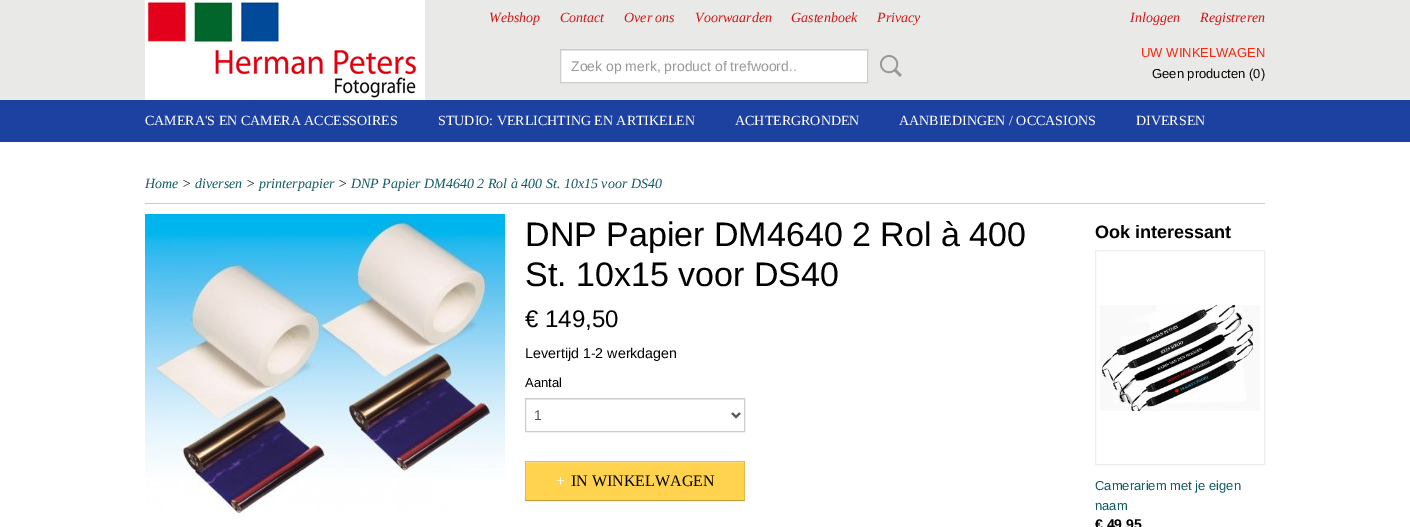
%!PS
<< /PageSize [1410 527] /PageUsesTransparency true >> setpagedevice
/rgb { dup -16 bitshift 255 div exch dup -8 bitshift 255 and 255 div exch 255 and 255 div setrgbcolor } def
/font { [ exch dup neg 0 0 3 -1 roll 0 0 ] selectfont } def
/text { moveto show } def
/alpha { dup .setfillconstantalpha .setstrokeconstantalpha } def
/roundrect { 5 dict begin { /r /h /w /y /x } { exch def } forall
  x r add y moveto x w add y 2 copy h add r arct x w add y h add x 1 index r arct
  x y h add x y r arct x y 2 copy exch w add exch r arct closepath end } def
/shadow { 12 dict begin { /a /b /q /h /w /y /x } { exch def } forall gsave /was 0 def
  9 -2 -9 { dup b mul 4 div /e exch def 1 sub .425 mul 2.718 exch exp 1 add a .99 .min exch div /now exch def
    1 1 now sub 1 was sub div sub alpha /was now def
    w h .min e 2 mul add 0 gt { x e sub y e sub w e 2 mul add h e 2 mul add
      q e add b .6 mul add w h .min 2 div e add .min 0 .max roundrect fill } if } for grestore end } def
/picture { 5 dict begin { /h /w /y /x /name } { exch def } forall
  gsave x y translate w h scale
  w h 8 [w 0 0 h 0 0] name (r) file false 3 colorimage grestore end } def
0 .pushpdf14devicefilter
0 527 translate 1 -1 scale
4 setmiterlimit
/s1 { /LiberationSerif-Italic 14 font 16#D11515 rgb } def
/s2 { /LiberationSans-Regular 13 font 16#F32911 rgb } def
/s3 { /LiberationSans-Regular 13 font 16#000000 rgb } def
/s4 { /LiberationSans-Regular 13 font 16#0C0503 rgb } def
/s5 { /LiberationSans-Regular 14 font 16#999999 rgb } def
/s6 { /LiberationSerif-Regular 14 font 16#FFFFFF rgb } def
/s7 { /LiberationSerif-Italic 14 font 16#105B63 rgb } def
/s8 { /LiberationSerif-Italic 14 font 16#000000 rgb } def
/s9 { /LiberationSans-Regular 34 font 16#000000 rgb } def
/s10 { /LiberationSans-Regular 24 font 16#000000 rgb } def
/s11 { /LiberationSans-Regular 14.25 font 16#000000 rgb } def
/s12 { /LiberationSans-Regular 14 font 16#555555 rgb } def
/s13 { /LiberationSerif-Regular 16 font 16#FFFFFF rgb } def
/s14 { /LiberationSerif-Regular 16 font 16#000000 rgb } def
/s15 { /LiberationSans-Bold 18 font 16#000000 rgb } def
/s16 { /LiberationSans-Regular 13 font 16#105B63 rgb } def
/s17 { /LiberationSans-Bold 14 font 16#000000 rgb } def
16#FFFFFF rgb
0 0 1410 527 rectfill
16#E9E9E8 rgb
0 0 1410 100 rectfill
(pic1.raw) 145 0 280 100 picture
s1
(Webshop) 489 22 text
(Contact) 560 22 text
(Over ons) 624 22 text
(Voorwaarden) 695 22 text
(Gastenboek) 791 22 text
(Privacy) 877 22 text
(Inloggen) 1130 22 text
(Registreren) 1200 22 text
s2
(UW WINKELWAGEN) 1141 57 text
s3
(Geen producten) 1152 78 text
s4
(\(0\)) 1249 78 text
16#FFFFFF rgb
561 51 306 31 rectfill
16#ECECEC rgb
561 50 306 1 rectfill
16#CCCCCC rgb
560.5 49.5 307 33 rectstroke
s5
(Zoek op merk, product of trefwoord..) 571 71 text
(pic2.raw) 880 55 22 22 picture
16#1D41A0 rgb
0 100 1410 42 rectfill
s6
(CAMERA'S EN CAMERA ACCESSOIRES) 145 125 text
(STUDIO: VERLICHTING EN ARTIKELEN) 438 125 text
(ACHTERGRONDEN) 735 125 text
(AANBIEDINGEN / OCCASIONS) 899 125 text
(DIVERSEN) 1136 125 text
16#CCCCCC rgb
145 203 1120 1 rectfill
s7
(Home) 145 188 text
s8
(>) 182 188 text
s7
(diversen) 195 188 text
s8
(>) 246 188 text
s7
(printerpapier) 259 188 text
s8
(>) 338 188 text
s7
(DNP Papier DM4640 2 Rol à 400 St. 10x15 voor DS40) 351 188 text
(pic3.raw) 145 214 360 304 picture
s9
(DNP Papier DM4640 2 Rol à 400) 525 246 text
(St. 10x15 voor DS40) 525 286 text
s10
(€ 149,50) 525 327 text
s11
(Levertijd 1-2 werkdagen) 525 358 text
s3
(Aantal) 525 387 text
16#ECECEC rgb
526 399 218 1 rectfill
16#CCCCCC rgb
525.5 398.5 219 33 rectstroke
16#555555 rgb
2 setlinewidth
732 413 moveto 736 417 lineto 740 413 lineto stroke
s12
(1) 534 420 text
16#000000 rgb
525 462 220 40 0 1 0.05 shadow
16#FFD34E rgb
525 461 220 40 rectfill
16#FFDC71 rgb
526 462 218 1 rectfill
16#E6BE46 rgb
525 461 moveto 745 461 lineto 744 462 lineto 526 462 lineto closepath fill
0.1 alpha
16#000000 rgb
745 461 moveto 745 501 lineto 744 500 lineto 744 462 lineto closepath fill
0.25 alpha
745 501 moveto 525 501 lineto 526 500 lineto 744 500 lineto closepath fill
0.1 alpha
525 501 moveto 525 461 lineto 526 462 lineto 526 500 lineto closepath fill
1 alpha
s13
(+) 556 486 text
s14
(IN WINKELWAGEN) 571 486 text
s15
(Ook interessant) 1095 238 text
16#EEEEEE rgb
1 setlinewidth
1095.5 250.5 169 214 rectstroke
(pic4.raw) 1100 305 160 106 picture
s16
(Camerariem met je eigen) 1095 490 text
(naam) 1095 510 text
s17
(€ 49,95) 1095 529 text
.poppdf14devicefilter showpage
